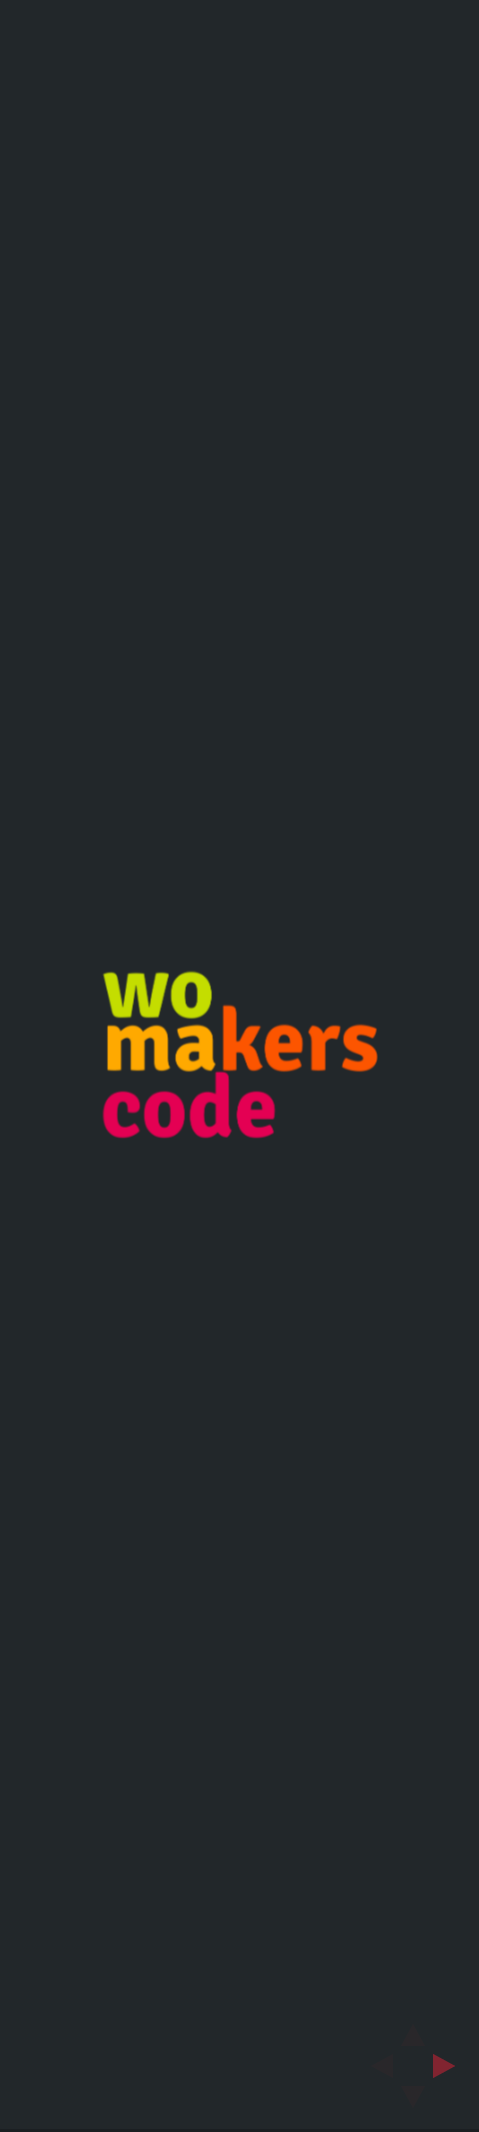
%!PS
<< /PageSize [479 2132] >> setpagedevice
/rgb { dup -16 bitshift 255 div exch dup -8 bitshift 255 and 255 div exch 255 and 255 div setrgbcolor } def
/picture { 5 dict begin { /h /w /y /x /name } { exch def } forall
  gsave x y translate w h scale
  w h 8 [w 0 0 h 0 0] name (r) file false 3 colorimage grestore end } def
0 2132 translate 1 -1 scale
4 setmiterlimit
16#22272A rgb
0 0 479 2132 rectfill
(pic1.raw) 102 970 276 169 picture
16#29272A rgb
425 2046 moveto 401 2046 lineto 413 2024 lineto closepath fill
393 2054 moveto 393 2078 lineto 371 2066 lineto closepath fill
16#812430 rgb
433 2078 moveto 433 2054 lineto 455 2066 lineto closepath fill
16#29272A rgb
401 2086 moveto 425 2086 lineto 413 2108 lineto closepath fill
16#1B1F22 rgb
0 2129 479 3 rectfill
showpage
